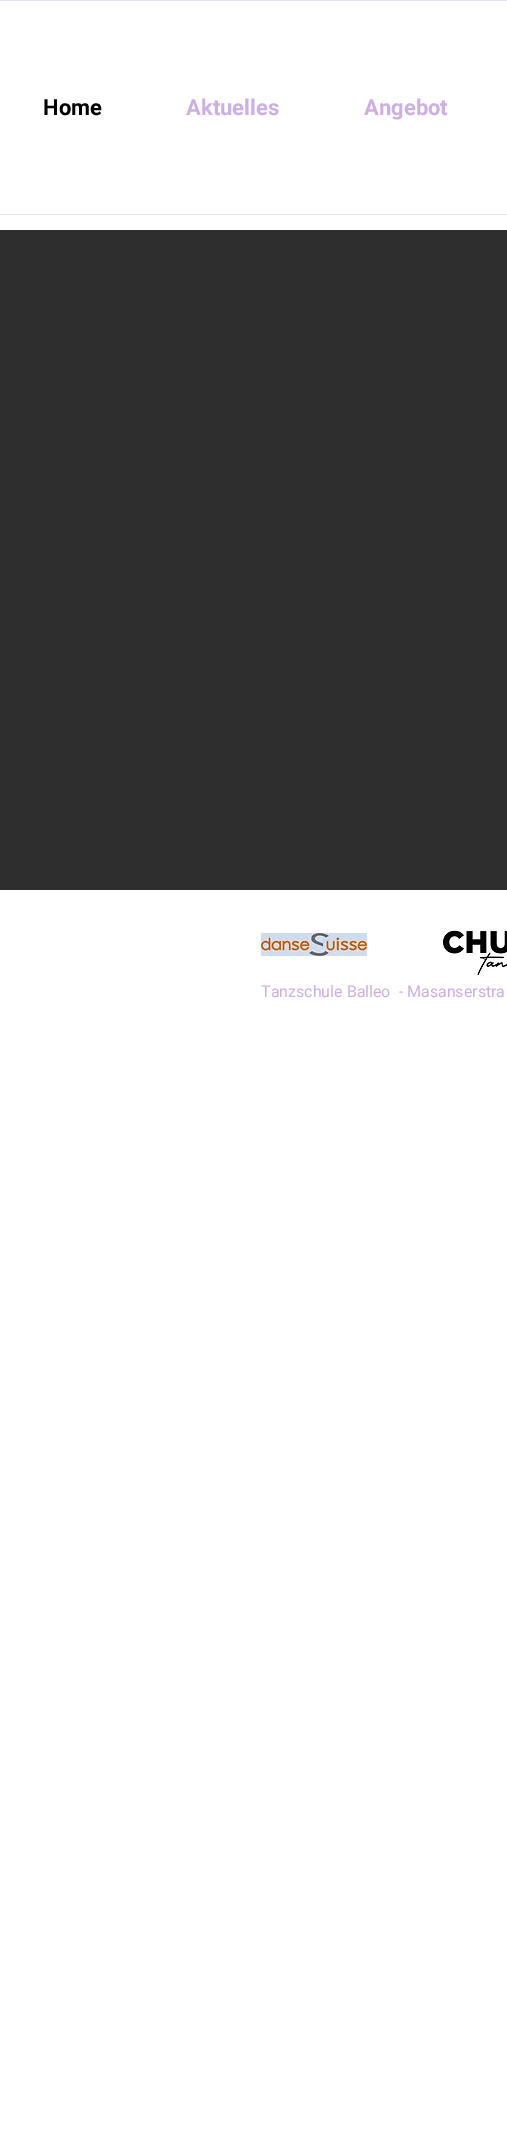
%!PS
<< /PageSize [507 2140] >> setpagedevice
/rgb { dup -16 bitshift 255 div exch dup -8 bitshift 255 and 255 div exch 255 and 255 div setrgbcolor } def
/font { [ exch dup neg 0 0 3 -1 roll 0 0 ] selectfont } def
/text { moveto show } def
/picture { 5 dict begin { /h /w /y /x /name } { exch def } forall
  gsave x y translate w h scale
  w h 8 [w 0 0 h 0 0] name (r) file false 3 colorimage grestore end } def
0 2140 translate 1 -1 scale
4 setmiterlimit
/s1 { /Roboto-Bold 22 font 16#000000 rgb } def
/s2 { /Roboto-Bold 22 font 16#CEAFE1 rgb } def
/s3 { /Roboto-Regular 16 font 16#CEAFE1 rgb } def
16#FFFFFF rgb
0 0 507 2140 rectfill
16#EDE1F4 rgb
0 0 507 1 rectfill
0 214 507 1 rectfill
s1
(Home) 43 115 text
s2
(Aktuelles) 186 115 text
(Angebot) 364 115 text
16#2F2E2E rgb
0 230 507 660 rectfill
(pic1.raw) 261 933 106 23 picture
(pic2.raw) 443 930 64 45 picture
s3
(Tanzschule Balleo  - Masanserstra) 261 997 text
showpage
